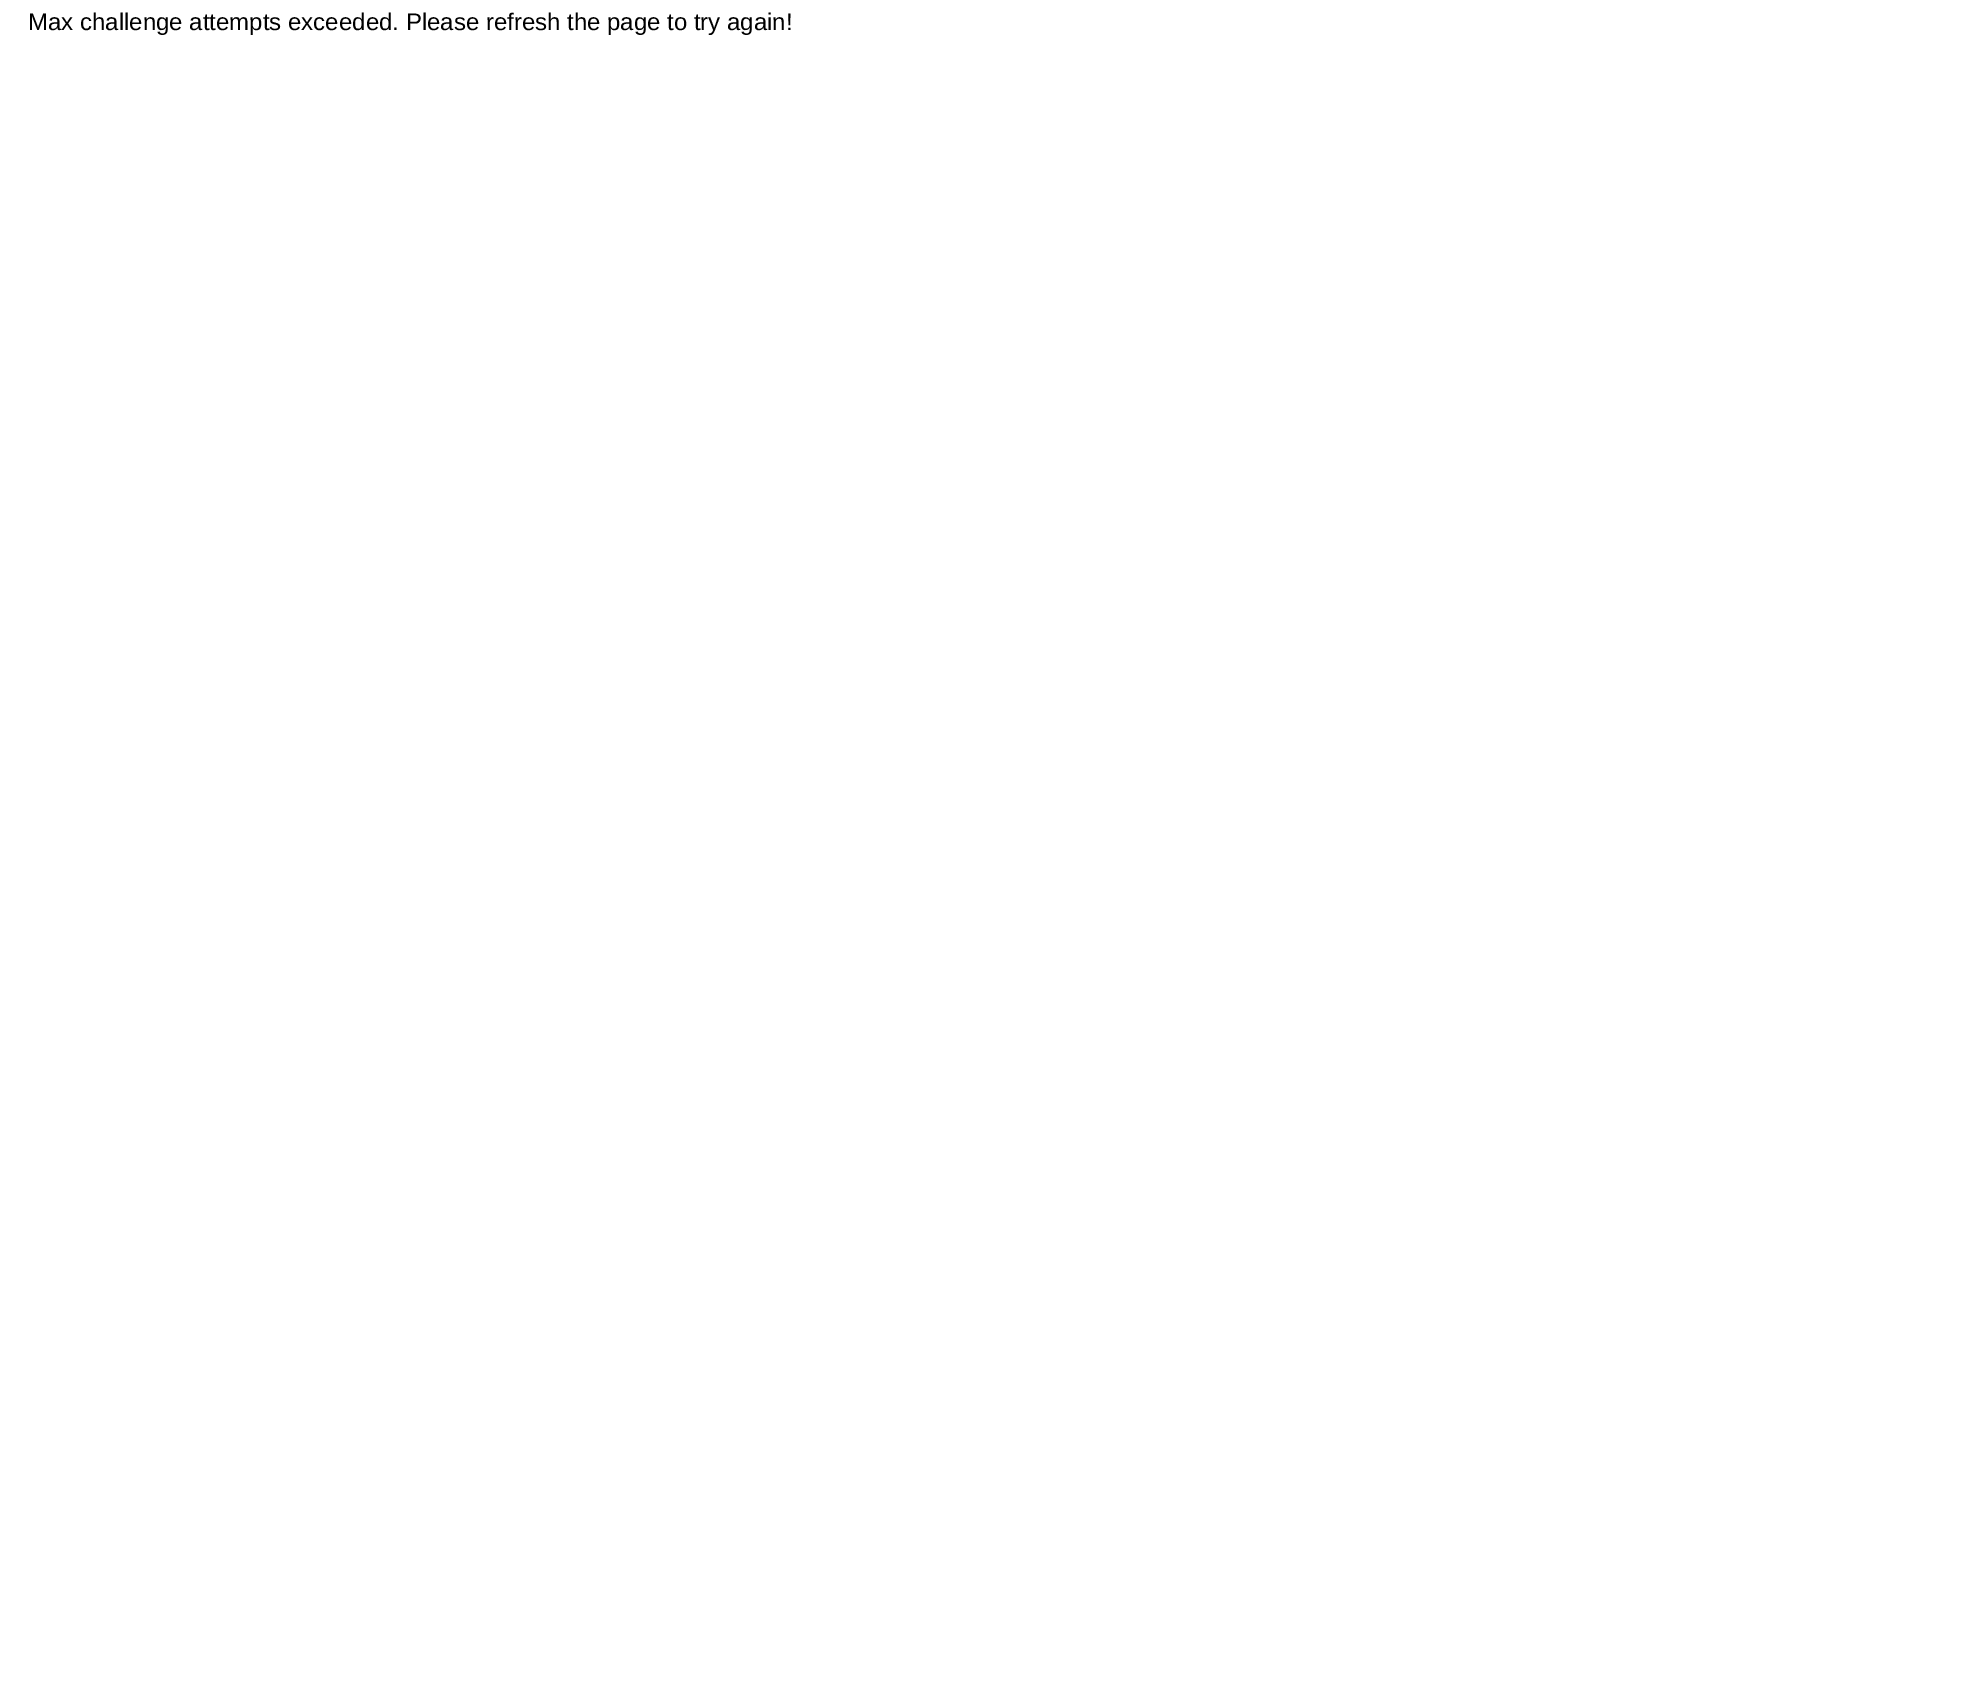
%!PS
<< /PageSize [1975 1696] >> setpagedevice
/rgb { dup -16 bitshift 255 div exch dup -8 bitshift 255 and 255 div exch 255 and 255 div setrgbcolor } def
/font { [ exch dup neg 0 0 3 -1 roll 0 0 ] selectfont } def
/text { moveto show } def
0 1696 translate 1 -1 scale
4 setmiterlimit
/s1 { /LiberationSans-Regular 24 font 16#000000 rgb } def
16#FFFFFF rgb
0 0 1975 1696 rectfill
s1
(Max challenge attempts exceeded. Please refresh the page to try again!) 28 30 text
showpage
